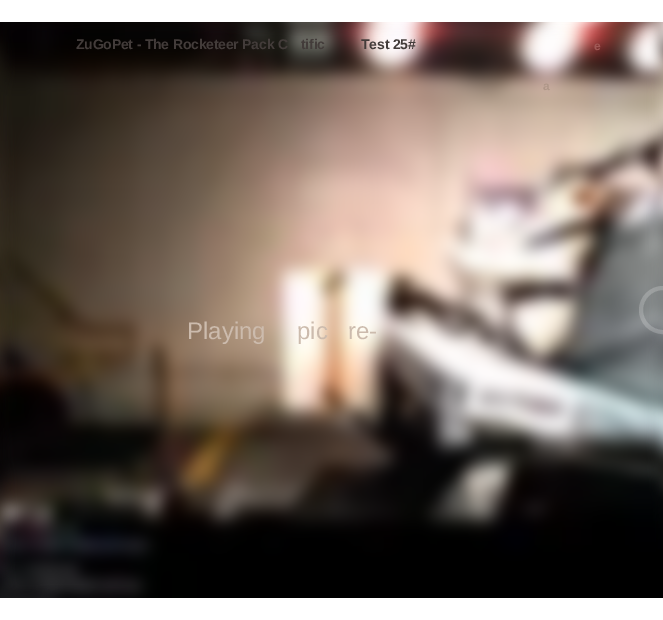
%!PS
<< /PageSize [663 620] /PageUsesTransparency true >> setpagedevice
/rgb { dup -16 bitshift 255 div exch dup -8 bitshift 255 and 255 div exch 255 and 255 div setrgbcolor } def
/font { [ exch dup neg 0 0 3 -1 roll 0 0 ] selectfont } def
/text { moveto show } def
/alpha { dup .setfillconstantalpha .setstrokeconstantalpha } def
/circle { newpath 0 360 arc closepath } def
/picture { 5 dict begin { /h /w /y /x /name } { exch def } forall
  gsave x y translate w h scale
  w h 8 [w 0 0 h 0 0] name (r) file false 3 colorimage grestore end } def
0 .pushpdf14devicefilter
0 620 translate 1 -1 scale
4 setmiterlimit
/s1 { /LiberationSans-Bold 12 font 16#A05956 rgb } def
/s2 { /LiberationSans-Bold 12 font 16#AE9688 rgb } def
/s3 { /LiberationSans-Regular 24 font 16#CCBBAD rgb } def
16#FFFFFF rgb
0 0 663 620 rectfill
(pic1.raw) 0 22 663 576 picture
(pic2.raw) 0 22 663 576 picture
/LiberationSans-Bold 14 font
16#433C3A rgb
76 49 moveto -0.2 0 (ZuGoPet - The Rocketeer Pack C) ashow
301 49 moveto -0.2 0 (tific) ashow
361 49 moveto -0.2 0 (Test 25#) ashow
s1
(e) 594 50 text
s2
(a) 543 90 text
s3
(Playing) 187 339 text
(pic) 297 339 text
(re-) 348 339 text
0.2 alpha
16#FFFFFF rgb
4 setlinewidth
663 310 22 circle stroke
.poppdf14devicefilter showpage
